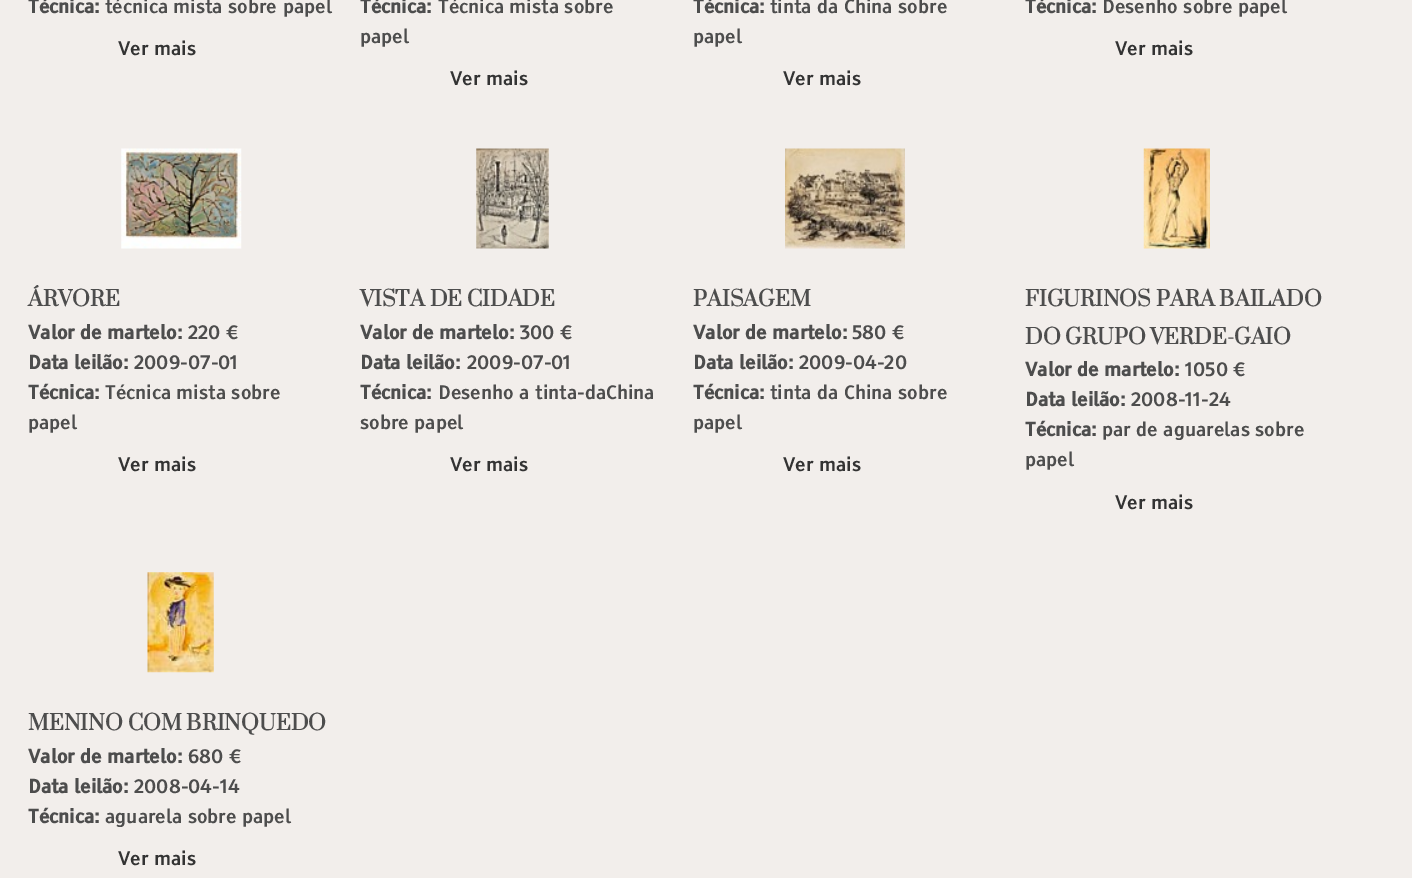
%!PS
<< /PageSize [1412 878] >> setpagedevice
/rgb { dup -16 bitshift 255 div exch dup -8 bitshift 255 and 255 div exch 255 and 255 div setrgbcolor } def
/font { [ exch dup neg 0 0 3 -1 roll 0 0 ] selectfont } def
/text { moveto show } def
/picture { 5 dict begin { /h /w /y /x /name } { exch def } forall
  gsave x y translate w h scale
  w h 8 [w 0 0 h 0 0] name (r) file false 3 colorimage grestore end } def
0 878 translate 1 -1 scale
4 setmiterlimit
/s1 { /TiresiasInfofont-Bold 18.75 font 16#4D4D4D rgb } def
/s2 { /TiresiasInfofont-Regular 18.75 font 16#4D4D4D rgb } def
/s3 { /TiresiasInfofont-Regular 18.75 font 16#333333 rgb } def
/s4 { /Prata-Bold 20.6 font 16#4D4D4D rgb } def
16#F2EEEB rgb
0 0 1412 878 rectfill
s1
(Técnica:) 28 13 text
s2
(técnica mista sobre papel) 105 13 text
s3
(Ver mais) 118 55 text
s1
(Técnica:) 360 13 text
s2
(Técnica mista sobre) 438 13 text
(papel) 360 43 text
s3
(Ver mais) 450 85 text
s1
(Técnica:) 693 13 text
s2
(tinta da China sobre) 770 13 text
(papel) 693 43 text
s3
(Ver mais) 783 85 text
s1
(Técnica:) 1025 13 text
s2
(Desenho sobre papel) 1102 13 text
s3
(Ver mais) 1115 55 text
(pic1.raw) 121 148 121 101 picture
s4
(ÁRVORE) 28 306 text
s1
(Valor de martelo:) 28 339 text
s2
(220 €) 188 339 text
s1
(Data leilão:) 28 369 text
s2
(2009-07-01) 134 369 text
s1
(Técnica:) 28 399 text
s2
(Técnica mista sobre) 105 399 text
(papel) 28 429 text
s3
(Ver mais) 118 471 text
(pic2.raw) 476 148 73 101 picture
s4
(VISTA DE CIDADE) 360 306 text
s1
(Valor de martelo:) 360 339 text
s2
(300 €) 520 339 text
s1
(Data leilão:) 360 369 text
s2
(2009-07-01) 467 369 text
s1
(Técnica:) 360 399 text
s2
(Desenho a tinta-daChina) 438 399 text
(sobre papel) 360 429 text
s3
(Ver mais) 450 471 text
(pic3.raw) 785 148 120 101 picture
s4
(PAISAGEM) 693 306 text
s1
(Valor de martelo:) 693 339 text
s2
(580 €) 852 339 text
s1
(Data leilão:) 693 369 text
s2
(2009-04-20) 799 369 text
s1
(Técnica:) 693 399 text
s2
(tinta da China sobre) 770 399 text
(papel) 693 429 text
s3
(Ver mais) 783 471 text
(pic4.raw) 1143 148 67 101 picture
s4
(FIGURINOS PARA BAILADO) 1025 306 text
(DO GRUPO VERDE-GAIO) 1025 344 text
s1
(Valor de martelo:) 1025 376 text
s2
(1050 €) 1185 376 text
s1
(Data leilão:) 1025 406 text
s2
(2008-11-24) 1131 406 text
s1
(Técnica:) 1025 436 text
s2
(par de aguarelas sobre) 1102 436 text
(papel) 1025 466 text
s3
(Ver mais) 1115 509 text
(pic5.raw) 147 572 67 101 picture
s4
(MENINO COM BRINQUEDO) 28 730 text
s1
(Valor de martelo:) 28 763 text
s2
(680 €) 188 763 text
s1
(Data leilão:) 28 793 text
s2
(2008-04-14) 134 793 text
s1
(Técnica:) 28 823 text
s2
(aguarela sobre papel) 105 823 text
s3
(Ver mais) 118 865 text
showpage
